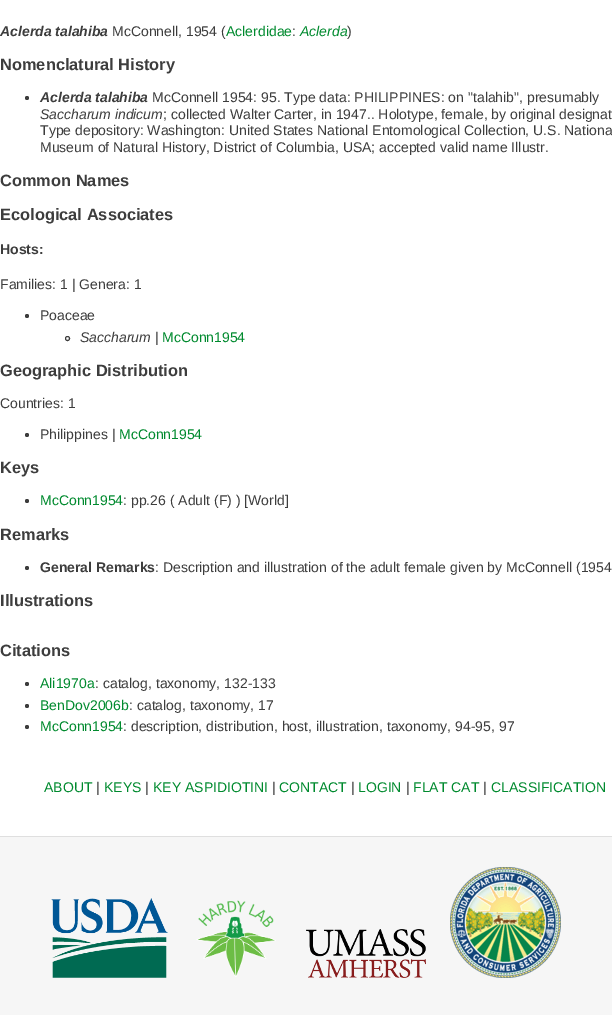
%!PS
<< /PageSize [612 1015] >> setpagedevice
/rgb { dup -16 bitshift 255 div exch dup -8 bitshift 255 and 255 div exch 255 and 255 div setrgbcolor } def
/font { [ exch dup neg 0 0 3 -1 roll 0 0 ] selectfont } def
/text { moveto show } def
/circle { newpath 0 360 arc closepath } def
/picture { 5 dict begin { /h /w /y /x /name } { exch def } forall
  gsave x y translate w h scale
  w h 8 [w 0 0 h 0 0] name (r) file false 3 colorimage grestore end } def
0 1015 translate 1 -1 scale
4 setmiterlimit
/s1 { /LiberationSans-BoldItalic 14 font 16#3D3D3D rgb } def
/s2 { /LiberationSans-Regular 14 font 16#3D3D3D rgb } def
/s3 { /LiberationSans-Regular 14 font 16#008A2E rgb } def
/s4 { /LiberationSans-Italic 14 font 16#008A2E rgb } def
/s5 { /LiberationSans-Bold 16.4 font 16#3D3D3D rgb } def
/s6 { /LiberationSans-Italic 14 font 16#3D3D3D rgb } def
/s7 { /LiberationSans-Bold 14 font 16#3D3D3D rgb } def
16#F6F6F6 rgb
0 0 612 1015 rectfill
16#FFFFFF rgb
0 0 612 836 rectfill
s1
(Aclerda talahiba) 0 36 text
s2
(McConnell, 1954 \() 112 36 text
s3
(Aclerdidae) 226 36 text
s2
(:) 292 36 text
s4
(Aclerda) 300 36 text
s2
(\)) 347 36 text
s5
(Nomenclatural History) 0 70 text
27 98 2 circle fill
s1
(Aclerda talahiba) 40 102 text
s2
(McConnell 1954: 95. Type data: PHILIPPINES: on "talahib", presumably) 152 102 text
s6
(Saccharum indicum) 40 119 text
s2
(; collected Walter Carter, in 1947.. Holotype, female, by original designat) 163 119 text
(Type depository: Washington: United States National Entomological Collection, U.S. Nationa) 40 135 text
(Museum of Natural History, District of Columbia, USA; accepted valid name Illustr.) 40 152 text
s5
(Common Names) 0 186 text
(Ecological Associates) 0 220 text
s7
(Hosts:) 0 254 text
s2
(Families: 1 | Genera: 1) 0 289 text
27 316 2 circle fill
(Poaceae) 40 320 text
67.5 338.5 2 circle stroke
s6
(Saccharum) 80 342 text
s2
(|) 155 342 text
s3
(McConn1954) 162 342 text
s5
(Geographic Distribution) 0 376 text
s2
(Countries: 1) 0 408 text
27 435 2 circle fill
(Philippines |) 40 439 text
s3
(McConn1954) 119 439 text
s5
(Keys) 0 473 text
27 501 2 circle fill
s3
(McConn1954) 40 505 text
s2
(: pp.26 \( Adult \(F\) \) [World]) 123 505 text
s5
(Remarks) 0 540 text
27 568 2 circle fill
s7
(General Remarks) 40 572 text
s2
(: Description and illustration of the adult female given by McConnell \(1954) 155 572 text
s5
(Illustrations) 0 606 text
(Citations) 0 656 text
27 684 2 circle fill
s3
(Ali1970a) 40 688 text
s2
(: catalog, taxonomy, 132-133) 95 688 text
27 706 2 circle fill
s3
(BenDov2006b) 40 710 text
s2
(: catalog, taxonomy, 17) 129 710 text
27 727 2 circle fill
s3
(McConn1954) 40 731 text
s2
(: description, distribution, host, illustration, taxonomy, 94-95, 97) 123 731 text
s3
(ABOUT) 44 792 text
s2
(|) 96 792 text
s3
(KEYS) 104 792 text
s2
(|) 145 792 text
s3
(KEY ASPIDIOTINI) 153 792 text
s2
(|) 272 792 text
s3
(CONTACT) 279 792 text
s2
(|) 351 792 text
s3
(LOGIN) 358 792 text
s2
(|) 406 792 text
s3
(FLAT CAT) 413 792 text
s2
(|) 483 792 text
s3
(CLASSIFICATION) 491 792 text
16#DFDFDF rgb
0 836 612 1 rectfill
(pic1.raw) 51 898 117 80 picture
(pic2.raw) 196 900 80 77 picture
(pic3.raw) 306 929 120 49 picture
(pic4.raw) 450 867 111 111 picture
showpage
